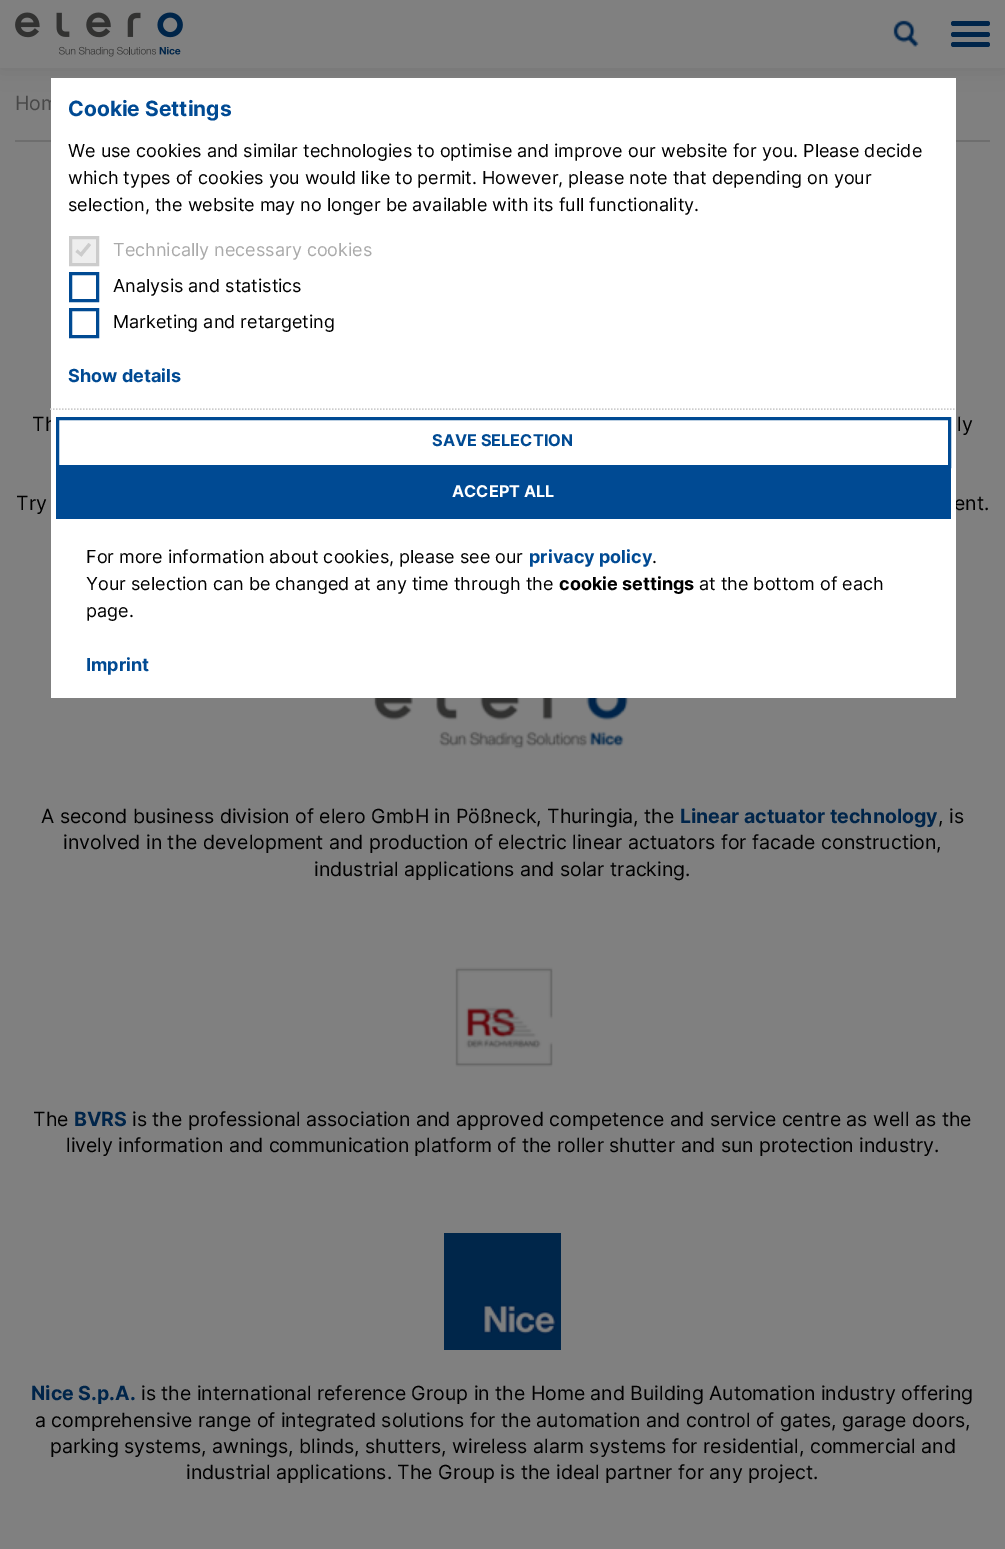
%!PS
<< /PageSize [1005 1549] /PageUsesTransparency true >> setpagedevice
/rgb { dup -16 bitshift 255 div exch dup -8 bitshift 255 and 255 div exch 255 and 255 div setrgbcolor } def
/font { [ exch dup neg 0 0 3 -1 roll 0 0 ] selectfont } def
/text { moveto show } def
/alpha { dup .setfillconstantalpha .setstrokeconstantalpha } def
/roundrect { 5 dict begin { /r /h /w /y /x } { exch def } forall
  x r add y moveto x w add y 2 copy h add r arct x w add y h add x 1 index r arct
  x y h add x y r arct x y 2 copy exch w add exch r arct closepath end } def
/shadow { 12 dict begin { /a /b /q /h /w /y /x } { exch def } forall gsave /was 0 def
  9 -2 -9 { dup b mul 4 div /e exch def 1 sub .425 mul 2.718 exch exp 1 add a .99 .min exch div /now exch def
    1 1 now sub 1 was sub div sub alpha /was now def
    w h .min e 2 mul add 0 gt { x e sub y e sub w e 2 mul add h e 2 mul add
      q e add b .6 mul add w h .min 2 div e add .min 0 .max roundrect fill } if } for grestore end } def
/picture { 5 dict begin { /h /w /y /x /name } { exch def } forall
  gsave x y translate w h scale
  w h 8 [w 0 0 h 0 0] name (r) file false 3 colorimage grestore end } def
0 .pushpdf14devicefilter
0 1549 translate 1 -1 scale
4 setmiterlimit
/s1 { /Inter-Regular 19.5 font 16#484848 rgb } def
/s2 { /Inter-Regular 19.5 font 16#000000 rgb } def
/s3 { /Inter-Bold 19.5 font 16#00254A rgb } def
/s4 { /Inter-Bold 21 font 16#004A93 rgb } def
/s5 { /Inter-Regular 18 font 16#000000 rgb } def
/s6 { /Inter-Regular 18 font 16#AAAAAA rgb } def
/s7 { /Inter-Bold 18 font 16#004A93 rgb } def
/s8 { /Inter-Bold 16.25 font 16#004A93 rgb } def
/s9 { /Inter-Bold 16.25 font 16#FFFFFF rgb } def
/s10 { /Inter-Bold 18 font 16#000000 rgb } def
16#808080 rgb
0 0 1005 1549 rectfill
16#000000 rgb
0 0 1005 68 0 10.5 0.1 shadow
16#808080 rgb
0 0 1005 68 rectfill
(pic1.raw) 15 12 168 45 picture
(pic2.raw) 893 20 26 27 picture
16#00254A rgb
951 21 39 5 2.5 roundrect fill
951 32 39 5 2.5 roundrect fill
951 42 39 5 2.5 roundrect fill
16#6E6E6E rgb
15 140 975 2 rectfill
s1
(Hom) 15 110 text
s2
(Th) 32 431 text
(ly) 957 431 text
(Try) 16 510 text
(ent.) 954 510 text
(pic3.raw) 373 698 256 51 picture
(A second business division of elero GmbH in Pößneck, Thuringia, the) 41 823 text
s3
(Linear actuator technology) 680 823 text
s2
(, is) 938 823 text
(involved in the development and production of electric linear actuators for facade construction,) 63 849 text
(industrial applications and solar tracking.) 314 876 text
(pic4.raw) 455 967 98 100 picture
(The) 33 1126 text
s3
(BVRS) 74 1126 text
s2
(is the professional association and approved competence and service centre as well as the) 132 1126 text
(lively information and communication platform of the roller shutter and sun protection industry.) 66 1152 text
(pic5.raw) 444 1233 117 117 picture
s3
(Nice S.p.A.) 31 1400 text
s2
(is the international reference Group in the Home and Building Automation industry offering) 141 1400 text
(a comprehensive range of integrated solutions for the automation and control of gates, garage doors,) 35 1427 text
(parking systems, awnings, blinds, shutters, wireless alarm systems for residential, commercial and) 50 1453 text
(industrial applications. The Group is the ideal partner for any project.) 186 1479 text
16#FFFFFF rgb
51 78 905 620 rectfill
s4
(Cookie Settings) 68 116 text
s5
(We use cookies and similar technologies to optimise and improve our website for you. Please decide) 68 157 text
(which types of cookies you would like to permit. However, please note that depending on your) 68 184 text
(selection, the website may no longer be available with its full functionality.) 68 211 text
16#EEEEEE rgb
70.5 237.5 moveto 97.5 237.5 lineto 97.5 264.5 lineto 70.5 264.5 lineto closepath gsave fill grestore
16#CCCCCC rgb
3 setlinewidth
stroke
s6
(Technically necessary cookies) 113 256 text
16#CCCCCC rgb
79 254.5 moveto 88.5 243 lineto 91 245 lineto 81.5 256.5 lineto closepath fill
75.5 252 moveto 77.5 249.5 lineto 83 254.5 lineto 81.5 256.5 lineto closepath fill
16#004A93 rgb
70.5 273.5 27 27 rectstroke
s5
(Analysis and statistics) 113 292 text
16#004A93 rgb
70.5 309.5 27 27 rectstroke
s5
(Marketing and retargeting) 113 328 text
s7
(Show details) 68 382 text
16#CCCCCC rgb
1.5 setlinewidth
[1.5 1.5] 0 setdash
50 409 moveto 955 409 lineto stroke
16#004A93 rgb
3 setlinewidth
[] 0 setdash
57.5 418.5 892 48 rectstroke
s8
(SAVE SELECTION) 432 446 text
56 468 895 51 rectfill
s9
(ACCEPT ALL) 452 497 text
s5
(For more information about cookies, please see our) 86 563 text
s7
(privacy policy) 529 563 text
s5
(.) 652 563 text
(Your selection can be changed at any time through the) 86 590 text
s10
(cookie settings) 559 590 text
s5
(at the bottom of each) 699 590 text
(page.) 86 617 text
s7
(Imprint) 86 671 text
.poppdf14devicefilter showpage
